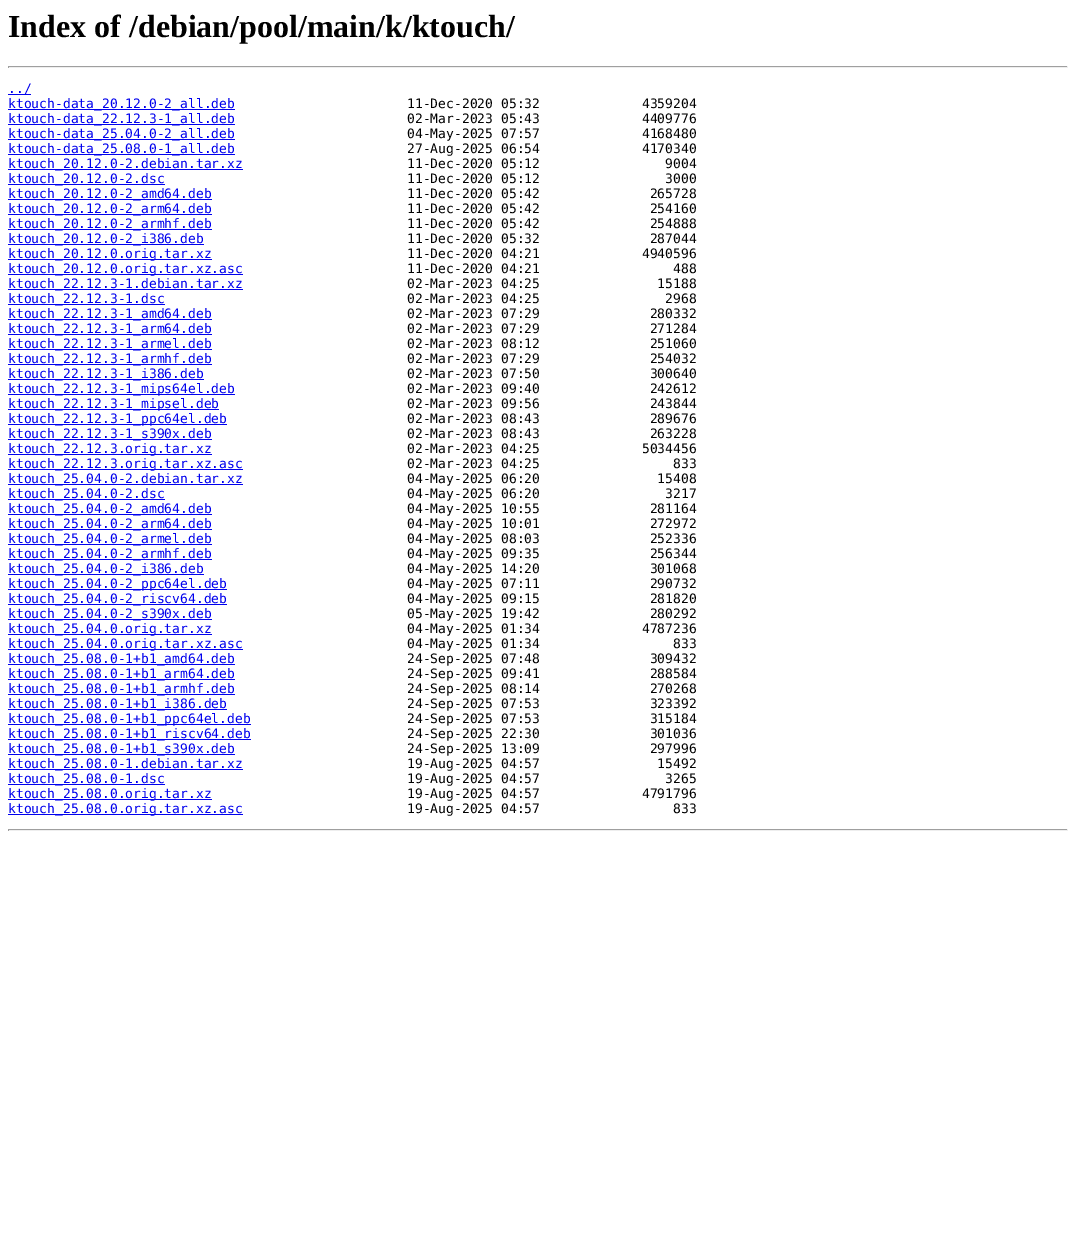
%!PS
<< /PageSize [1076 1244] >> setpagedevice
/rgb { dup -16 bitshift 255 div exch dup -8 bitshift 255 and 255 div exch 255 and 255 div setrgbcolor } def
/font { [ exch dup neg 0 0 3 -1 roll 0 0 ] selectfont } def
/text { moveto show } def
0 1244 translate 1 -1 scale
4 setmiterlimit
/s1 { /LiberationSerif-Bold 32 font 16#000000 rgb } def
/s2 { /DejaVuSansMono-Regular 13 font 16#0000EE rgb } def
/s3 { /DejaVuSansMono-Regular 13 font 16#000000 rgb } def
16#FFFFFF rgb
0 0 1076 1244 rectfill
s1
(Index of /debian/pool/main/k/ktouch/) 8 37 text
16#9F9F9F rgb
8 66 1060 1 rectfill
16#EEEEEE rgb
1067 66 1 2 rectfill
8 67 1060 1 rectfill
16#9F9F9F rgb
8 66 1 2 rectfill
16#0000EE rgb
8 94 23 1 rectfill
s2
(../) 8 93 text
8 109 227 1 rectfill
(ktouch-data_20.12.0-2_all.deb) 8 108 text
s3
(11-Dec-2020 05:32             4359204) 407 108 text
16#0000EE rgb
8 124 227 1 rectfill
(ktouch-data_22.12.3-1_all.deb) 8 123 text
s3
(02-Mar-2023 05:43             4409776) 407 123 text
16#0000EE rgb
8 139 227 1 rectfill
(ktouch-data_25.04.0-2_all.deb) 8 138 text
s3
(04-May-2025 07:57             4168480) 407 138 text
16#0000EE rgb
8 154 227 1 rectfill
(ktouch-data_25.08.0-1_all.deb) 8 153 text
s3
(27-Aug-2025 06:54             4170340) 407 153 text
16#0000EE rgb
8 169 235 1 rectfill
(ktouch_20.12.0-2.debian.tar.xz) 8 168 text
s3
(11-Dec-2020 05:12                9004) 407 168 text
16#0000EE rgb
8 184 157 1 rectfill
(ktouch_20.12.0-2.dsc) 8 183 text
s3
(11-Dec-2020 05:12                3000) 407 183 text
16#0000EE rgb
8 199 204 1 rectfill
(ktouch_20.12.0-2_amd64.deb) 8 198 text
s3
(11-Dec-2020 05:42              265728) 407 198 text
16#0000EE rgb
8 214 204 1 rectfill
(ktouch_20.12.0-2_arm64.deb) 8 213 text
s3
(11-Dec-2020 05:42              254160) 407 213 text
16#0000EE rgb
8 229 204 1 rectfill
(ktouch_20.12.0-2_armhf.deb) 8 228 text
s3
(11-Dec-2020 05:42              254888) 407 228 text
16#0000EE rgb
8 244 196 1 rectfill
(ktouch_20.12.0-2_i386.deb) 8 243 text
s3
(11-Dec-2020 05:32              287044) 407 243 text
16#0000EE rgb
8 259 204 1 rectfill
(ktouch_20.12.0.orig.tar.xz) 8 258 text
s3
(11-Dec-2020 04:21             4940596) 407 258 text
16#0000EE rgb
8 274 235 1 rectfill
(ktouch_20.12.0.orig.tar.xz.asc) 8 273 text
s3
(11-Dec-2020 04:21                 488) 407 273 text
16#0000EE rgb
8 289 235 1 rectfill
(ktouch_22.12.3-1.debian.tar.xz) 8 288 text
s3
(02-Mar-2023 04:25               15188) 407 288 text
16#0000EE rgb
8 304 157 1 rectfill
(ktouch_22.12.3-1.dsc) 8 303 text
s3
(02-Mar-2023 04:25                2968) 407 303 text
16#0000EE rgb
8 319 204 1 rectfill
(ktouch_22.12.3-1_amd64.deb) 8 318 text
s3
(02-Mar-2023 07:29              280332) 407 318 text
16#0000EE rgb
8 334 204 1 rectfill
(ktouch_22.12.3-1_arm64.deb) 8 333 text
s3
(02-Mar-2023 07:29              271284) 407 333 text
16#0000EE rgb
8 349 204 1 rectfill
(ktouch_22.12.3-1_armel.deb) 8 348 text
s3
(02-Mar-2023 08:12              251060) 407 348 text
16#0000EE rgb
8 364 204 1 rectfill
(ktouch_22.12.3-1_armhf.deb) 8 363 text
s3
(02-Mar-2023 07:29              254032) 407 363 text
16#0000EE rgb
8 379 196 1 rectfill
(ktouch_22.12.3-1_i386.deb) 8 378 text
s3
(02-Mar-2023 07:50              300640) 407 378 text
16#0000EE rgb
8 394 227 1 rectfill
(ktouch_22.12.3-1_mips64el.deb) 8 393 text
s3
(02-Mar-2023 09:40              242612) 407 393 text
16#0000EE rgb
8 409 211 1 rectfill
(ktouch_22.12.3-1_mipsel.deb) 8 408 text
s3
(02-Mar-2023 09:56              243844) 407 408 text
16#0000EE rgb
8 424 219 1 rectfill
(ktouch_22.12.3-1_ppc64el.deb) 8 423 text
s3
(02-Mar-2023 08:43              289676) 407 423 text
16#0000EE rgb
8 439 204 1 rectfill
(ktouch_22.12.3-1_s390x.deb) 8 438 text
s3
(02-Mar-2023 08:43              263228) 407 438 text
16#0000EE rgb
8 454 204 1 rectfill
(ktouch_22.12.3.orig.tar.xz) 8 453 text
s3
(02-Mar-2023 04:25             5034456) 407 453 text
16#0000EE rgb
8 469 235 1 rectfill
(ktouch_22.12.3.orig.tar.xz.asc) 8 468 text
s3
(02-Mar-2023 04:25                 833) 407 468 text
16#0000EE rgb
8 484 235 1 rectfill
(ktouch_25.04.0-2.debian.tar.xz) 8 483 text
s3
(04-May-2025 06:20               15408) 407 483 text
16#0000EE rgb
8 499 157 1 rectfill
(ktouch_25.04.0-2.dsc) 8 498 text
s3
(04-May-2025 06:20                3217) 407 498 text
16#0000EE rgb
8 514 204 1 rectfill
(ktouch_25.04.0-2_amd64.deb) 8 513 text
s3
(04-May-2025 10:55              281164) 407 513 text
16#0000EE rgb
8 529 204 1 rectfill
(ktouch_25.04.0-2_arm64.deb) 8 528 text
s3
(04-May-2025 10:01              272972) 407 528 text
16#0000EE rgb
8 544 204 1 rectfill
(ktouch_25.04.0-2_armel.deb) 8 543 text
s3
(04-May-2025 08:03              252336) 407 543 text
16#0000EE rgb
8 559 204 1 rectfill
(ktouch_25.04.0-2_armhf.deb) 8 558 text
s3
(04-May-2025 09:35              256344) 407 558 text
16#0000EE rgb
8 574 196 1 rectfill
(ktouch_25.04.0-2_i386.deb) 8 573 text
s3
(04-May-2025 14:20              301068) 407 573 text
16#0000EE rgb
8 589 219 1 rectfill
(ktouch_25.04.0-2_ppc64el.deb) 8 588 text
s3
(04-May-2025 07:11              290732) 407 588 text
16#0000EE rgb
8 604 219 1 rectfill
(ktouch_25.04.0-2_riscv64.deb) 8 603 text
s3
(04-May-2025 09:15              281820) 407 603 text
16#0000EE rgb
8 619 204 1 rectfill
(ktouch_25.04.0-2_s390x.deb) 8 618 text
s3
(05-May-2025 19:42              280292) 407 618 text
16#0000EE rgb
8 634 204 1 rectfill
(ktouch_25.04.0.orig.tar.xz) 8 633 text
s3
(04-May-2025 01:34             4787236) 407 633 text
16#0000EE rgb
8 649 235 1 rectfill
(ktouch_25.04.0.orig.tar.xz.asc) 8 648 text
s3
(04-May-2025 01:34                 833) 407 648 text
16#0000EE rgb
8 664 227 1 rectfill
(ktouch_25.08.0-1+b1_amd64.deb) 8 663 text
s3
(24-Sep-2025 07:48              309432) 407 663 text
16#0000EE rgb
8 679 227 1 rectfill
(ktouch_25.08.0-1+b1_arm64.deb) 8 678 text
s3
(24-Sep-2025 09:41              288584) 407 678 text
16#0000EE rgb
8 694 227 1 rectfill
(ktouch_25.08.0-1+b1_armhf.deb) 8 693 text
s3
(24-Sep-2025 08:14              270268) 407 693 text
16#0000EE rgb
8 709 219 1 rectfill
(ktouch_25.08.0-1+b1_i386.deb) 8 708 text
s3
(24-Sep-2025 07:53              323392) 407 708 text
16#0000EE rgb
8 724 243 1 rectfill
(ktouch_25.08.0-1+b1_ppc64el.deb) 8 723 text
s3
(24-Sep-2025 07:53              315184) 407 723 text
16#0000EE rgb
8 739 243 1 rectfill
(ktouch_25.08.0-1+b1_riscv64.deb) 8 738 text
s3
(24-Sep-2025 22:30              301036) 407 738 text
16#0000EE rgb
8 754 227 1 rectfill
(ktouch_25.08.0-1+b1_s390x.deb) 8 753 text
s3
(24-Sep-2025 13:09              297996) 407 753 text
16#0000EE rgb
8 769 235 1 rectfill
(ktouch_25.08.0-1.debian.tar.xz) 8 768 text
s3
(19-Aug-2025 04:57               15492) 407 768 text
16#0000EE rgb
8 784 157 1 rectfill
(ktouch_25.08.0-1.dsc) 8 783 text
s3
(19-Aug-2025 04:57                3265) 407 783 text
16#0000EE rgb
8 799 204 1 rectfill
(ktouch_25.08.0.orig.tar.xz) 8 798 text
s3
(19-Aug-2025 04:57             4791796) 407 798 text
16#0000EE rgb
8 814 235 1 rectfill
(ktouch_25.08.0.orig.tar.xz.asc) 8 813 text
s3
(19-Aug-2025 04:57                 833) 407 813 text
16#9F9F9F rgb
8 829 1060 1 rectfill
16#EEEEEE rgb
1067 829 1 2 rectfill
8 830 1060 1 rectfill
16#9F9F9F rgb
8 829 1 2 rectfill
showpage
